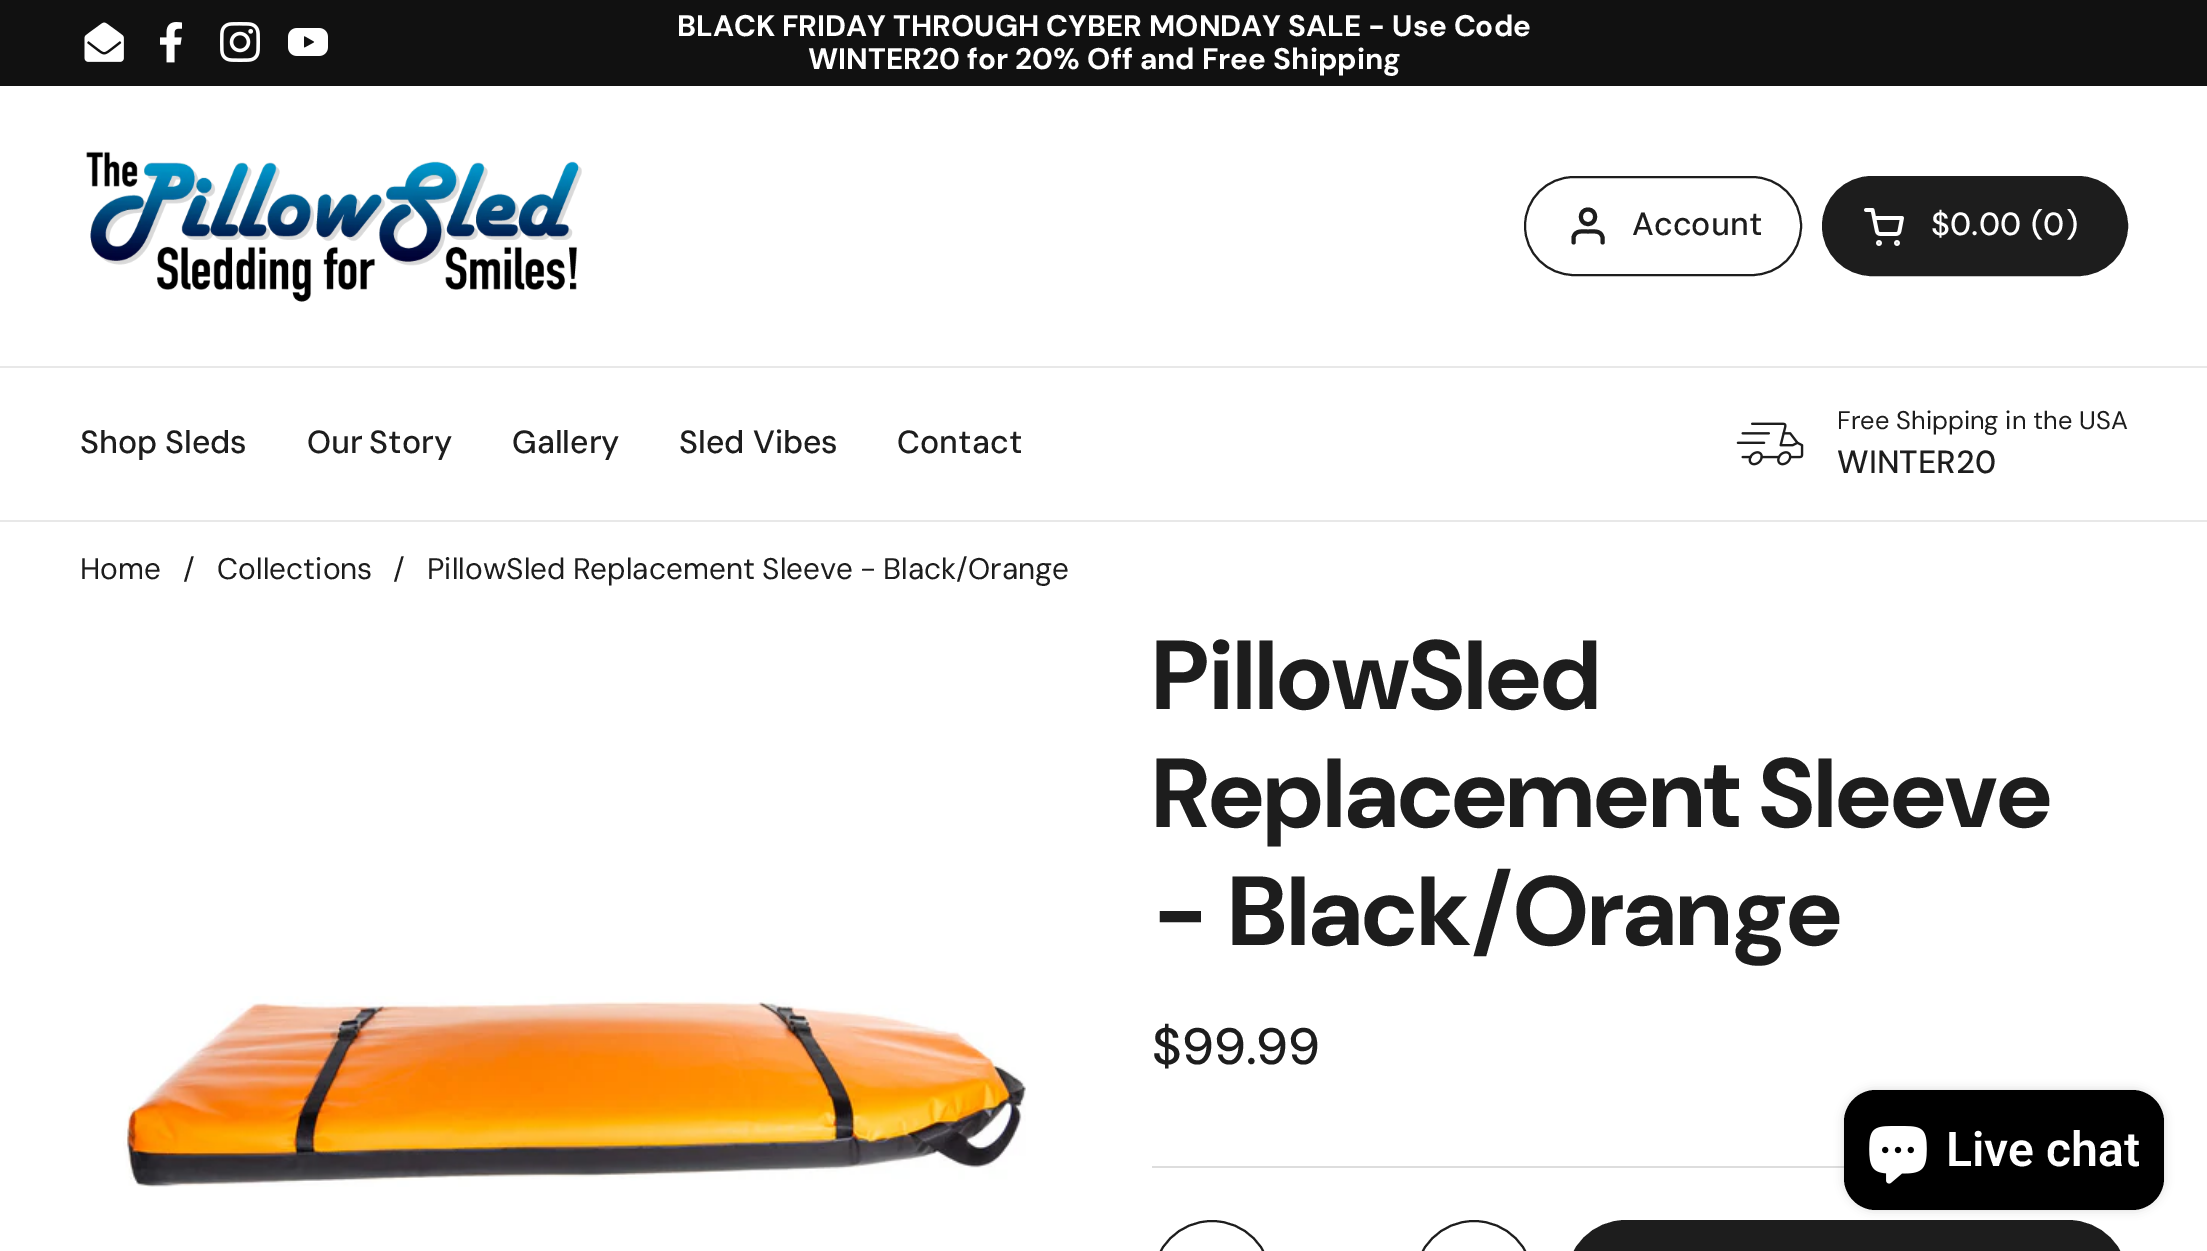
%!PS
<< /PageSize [2207 1251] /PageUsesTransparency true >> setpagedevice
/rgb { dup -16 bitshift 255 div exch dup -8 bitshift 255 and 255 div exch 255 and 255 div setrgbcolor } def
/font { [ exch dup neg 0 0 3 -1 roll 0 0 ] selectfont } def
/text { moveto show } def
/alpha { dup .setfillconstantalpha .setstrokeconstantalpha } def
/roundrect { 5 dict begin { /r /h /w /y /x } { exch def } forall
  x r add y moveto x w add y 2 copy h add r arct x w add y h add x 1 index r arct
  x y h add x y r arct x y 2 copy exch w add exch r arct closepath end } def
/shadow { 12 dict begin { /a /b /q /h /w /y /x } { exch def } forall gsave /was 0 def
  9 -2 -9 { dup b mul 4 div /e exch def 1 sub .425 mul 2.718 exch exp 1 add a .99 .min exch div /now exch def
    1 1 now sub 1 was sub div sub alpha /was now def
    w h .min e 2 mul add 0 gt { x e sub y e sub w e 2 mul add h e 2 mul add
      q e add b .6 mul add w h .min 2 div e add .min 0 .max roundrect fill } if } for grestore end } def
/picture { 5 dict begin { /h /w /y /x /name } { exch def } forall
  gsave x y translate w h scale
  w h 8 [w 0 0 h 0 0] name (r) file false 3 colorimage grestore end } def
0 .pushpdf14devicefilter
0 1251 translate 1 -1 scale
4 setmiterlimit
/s1 { /DMSans-Bold 29.75 font 16#FFFFFF rgb } def
/s2 { /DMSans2-Medium 32 font 16#1D1D1D rgb } def
/s3 { /DMSans2-Medium 32 font 16#FFFFFF rgb } def
/s4 { /DMSans2-Regular 25.5 font 16#1D1D1D rgb } def
/s5 { /DMSans-Regular 29.75 font 16#1D1D1D rgb } def
/s6 { /DMSans2-Bold 98 font 16#1D1D1D rgb } def
/s7 { /DMSans-Medium 51 font 16#1D1D1D rgb } def
/s8 { /Roboto-SemiBold 48 font 16#FFFFFF rgb } def
16#FFFFFF rgb
0 0 2207 1251 rectfill
16#111111 rgb
0 0 2207 86 rectfill
(pic1.raw) 84 22 40 40 picture
(pic2.raw) 160 22 22 41 picture
(pic3.raw) 220 22 40 40 picture
(pic4.raw) 288 28 40 28 picture
s1
(BLACK FRIDAY THROUGH CYBER MONDAY SALE - Use Code) 677 36 text
(WINTER20 for 20% Off and Free Shipping) 808 69 text
16#E8E8E8 rgb
0 366 2207 2 rectfill
(pic5.raw) 86 151 496 151 picture
16#1D1D1D rgb
2 setlinewidth
1525 177 276 98 49 roundrect stroke
4 setlinewidth
1 setlinecap
1 setlinejoin
1602.5 242.5 moveto 1602.5 237.5 lineto 1601 230 1593.5 231.5 1588 231.5 curveto 1582.5 231.5 1575 230 1573.5 237.5 curveto 1573.5 242.5 lineto 1588 224 moveto 1597.5 224 1597.5 209.5 1588 209.5 curveto 1578.5 209.5 1578.5 224 1588 224 curveto closepath stroke
s2
(Account) 1632 235 text
1823 177 304 98 49 roundrect gsave fill grestore
2 setlinewidth
0 setlinecap
0 setlinejoin
stroke
(pic6.raw) 1864 208 40 38 picture
s3
($0.00) 1931 235 text
(\(0) 2031 235 text
(\)) 2066 235 text
16#E8E8E8 rgb
0 520 2207 2 rectfill
16#1D1D1D rgb
80 453 moveto -1 0 32 (Shop Sleds) widthshow
307 453 moveto -2 0 32 (Our Story) widthshow
(Gallery) 512 453 text
(Sled Vibes) 679 453 text
(Contact) 897 453 text
(pic7.raw) 1736 422 68 44 picture
s4
(Free Shipping in the USA) 1837 429 text
s2
(WINTER20) 1837 473 text
s5
(Home) 80 579 text
(/) 183 579 text
(Collections) 217 579 text
(/) 393 579 text
427 579 moveto -1 0 32 (PillowSled Replacement Sleeve - Black/Orange) widthshow
s6
(PillowSled) 1152 709 text
(Replacement Sleeve) 1152 827 text
(- Black/Orange) 1152 945 text
s7
($99.99) 1152 1064 text
16#DDDDDD rgb
1152 1166 692 2 rectfill
16#1D1D1D rgb
1153 1221 118 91 59 roundrect stroke
1415 1221 118 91 59 roundrect stroke
1567 1221 560 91 59 roundrect gsave fill grestore
stroke
(pic8.raw) 123 996 903 191 picture
16#000000 rgb
1844 1090 320 120 32 5 0.15 shadow
1844 1090 320 120 32 roundrect fill
(pic9.raw) 1869 1126 58 58 picture
s8
(Live chat) 1946 1166 text
.poppdf14devicefilter showpage
